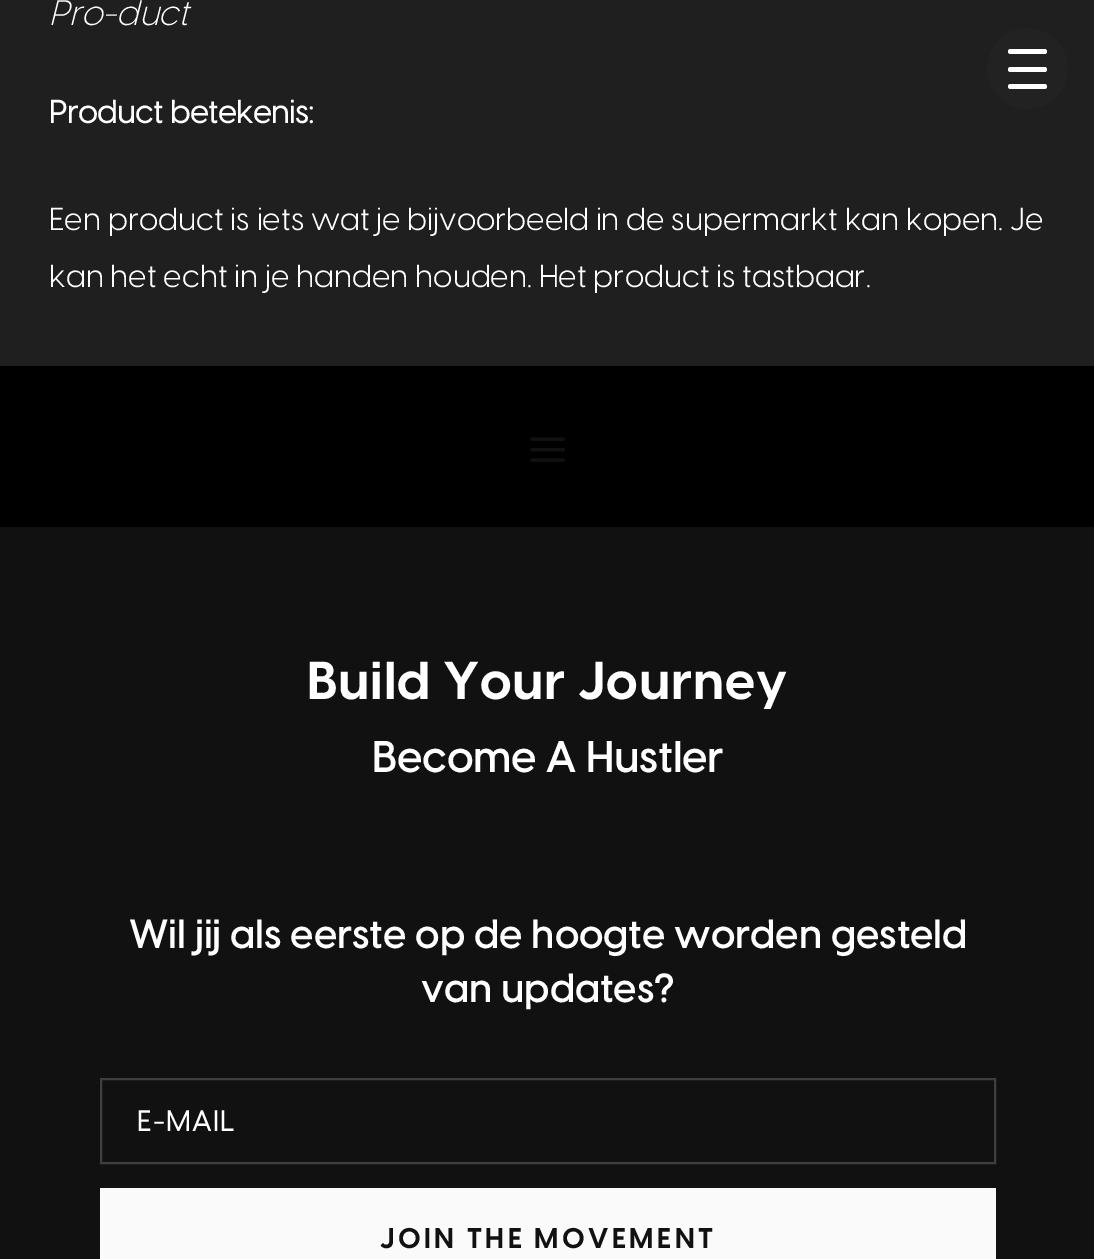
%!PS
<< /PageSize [1094 1259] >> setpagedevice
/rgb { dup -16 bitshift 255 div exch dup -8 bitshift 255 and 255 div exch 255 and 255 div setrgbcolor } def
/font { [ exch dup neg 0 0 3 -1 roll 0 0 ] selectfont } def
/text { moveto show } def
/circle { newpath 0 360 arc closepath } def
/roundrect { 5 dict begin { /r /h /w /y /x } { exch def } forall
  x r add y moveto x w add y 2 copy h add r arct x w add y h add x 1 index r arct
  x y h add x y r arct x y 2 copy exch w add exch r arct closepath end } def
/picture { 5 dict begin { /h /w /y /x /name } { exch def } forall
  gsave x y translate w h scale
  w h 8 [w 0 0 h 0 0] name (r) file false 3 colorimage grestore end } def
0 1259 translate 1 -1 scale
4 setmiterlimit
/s1 { /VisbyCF-LightItalic 35 font 16#FFFFFF rgb } def
/s2 { /VisbyCF-Bold 31.5 font 16#FFFFFF rgb } def
/s3 { /VisbyCF-Regular 31.5 font 16#FFFFFF rgb } def
16#1F1F1F rgb
0 0 1094 1259 rectfill
s1
(Pro-duct) 49 25 text
s2
(Product betekenis:) 49 123 text
s3
(Een product is iets wat je bijvoorbeeld in de supermarkt kan kopen. Je) 49 230 text
(kan het echt in je handen houden. Het product is tastbaar.) 49 287 text
16#000000 rgb
0 366 1094 161 rectfill
(pic1.raw) 530 437 35 25 picture
16#222222 rgb
1027.5 68.5 40.5 circle fill
16#FFFFFF rgb
1008 49 39 5 2.5 roundrect fill
1008 67 39 5 2.5 roundrect fill
1008 84 39 5 2.5 roundrect fill
16#111111 rgb
0 527 1094 732 rectfill
/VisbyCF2-Bold 52.5 font
16#FFFFFF rgb
307 699 moveto 0.9 0 (Build Your Journey) ashow
/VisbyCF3-Bold 42 font
372 772 moveto 0.9 0 (Become A Hustler) ashow
/VisbyCF3-Bold 38.5 font
129 948 moveto 0.9 0 (Wil jij als eerste op de hoogte worden gesteld) ashow
421 1002 moveto 0.9 0 (van updates?) ashow
16#3F3F3F rgb
2 setlinewidth
101 1079 894 84 rectstroke
/VisbyCF-Bold 28 font
16#FFFFFF rgb
137 1131 moveto 2 0 (E-MAIL) ashow
16#FAFAFA rgb
100 1188 896 71 rectfill
/VisbyCF2-Bold 28 font
16#111111 rgb
380 1248 moveto 3.5 0 (JOIN THE MOVEMENT) ashow
showpage
